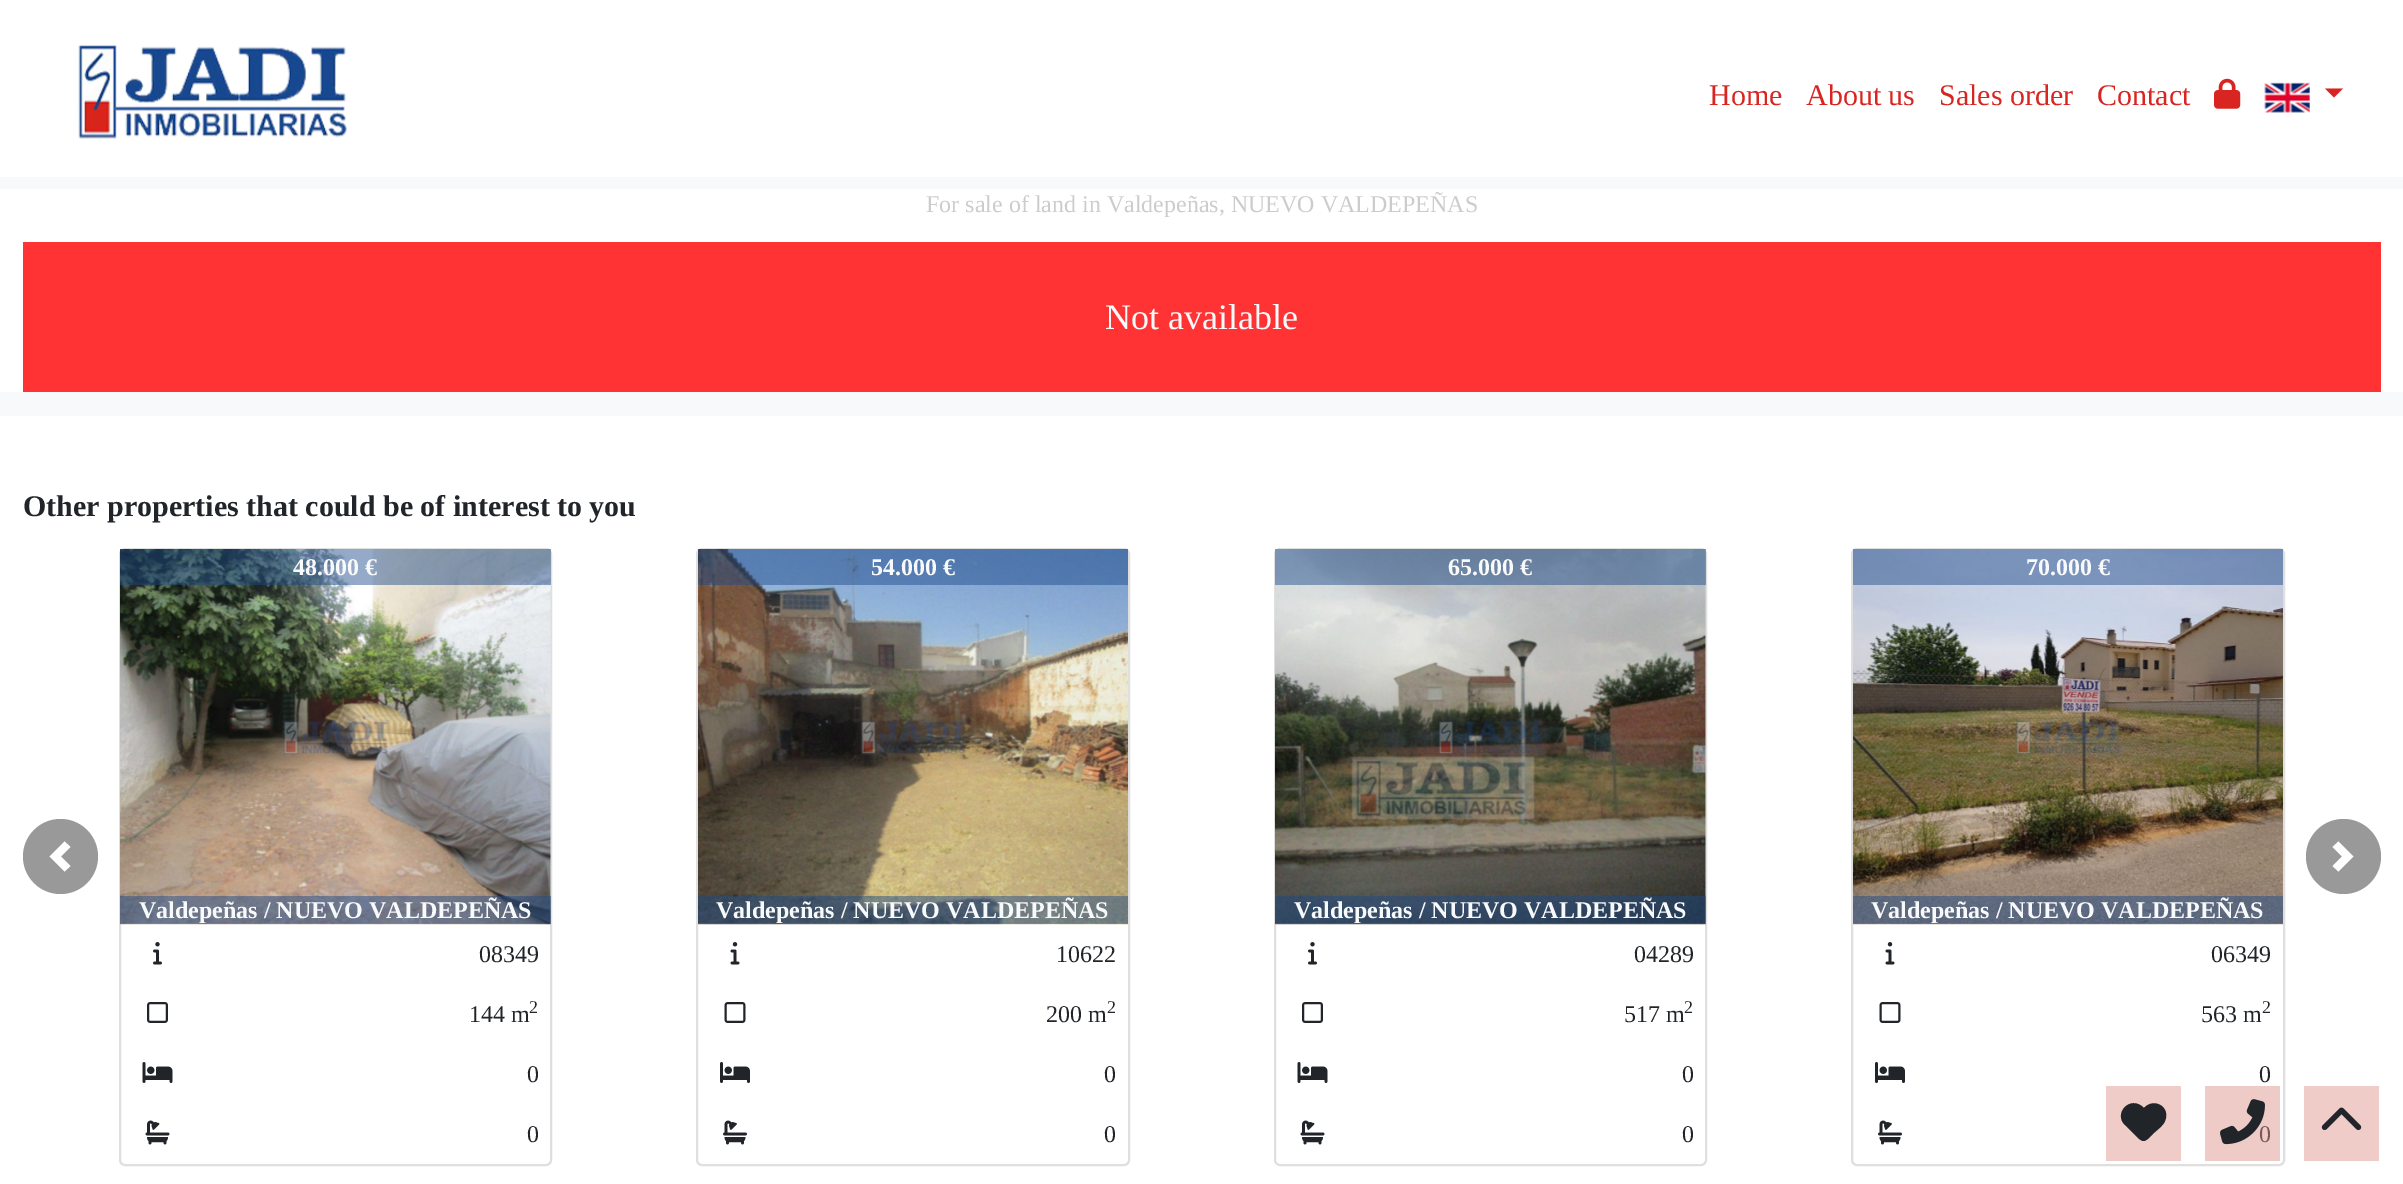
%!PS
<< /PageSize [2403 1184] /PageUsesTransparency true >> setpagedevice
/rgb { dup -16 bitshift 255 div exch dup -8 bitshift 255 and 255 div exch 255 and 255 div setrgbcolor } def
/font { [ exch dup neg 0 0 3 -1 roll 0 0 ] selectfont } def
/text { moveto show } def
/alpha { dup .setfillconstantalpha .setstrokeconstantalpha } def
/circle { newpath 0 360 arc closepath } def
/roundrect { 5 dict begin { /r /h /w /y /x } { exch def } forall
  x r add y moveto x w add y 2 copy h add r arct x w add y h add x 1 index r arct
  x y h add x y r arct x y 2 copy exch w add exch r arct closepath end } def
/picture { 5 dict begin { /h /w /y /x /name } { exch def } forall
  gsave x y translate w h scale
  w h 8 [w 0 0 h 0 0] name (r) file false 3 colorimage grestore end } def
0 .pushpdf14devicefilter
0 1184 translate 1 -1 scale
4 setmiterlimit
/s1 { /LiberationSerif-Regular 30 font 16#D82521 rgb } def
/s2 { /LiberationSerif-Regular 24 font 16#CCCCCC rgb } def
/s3 { /LiberationSerif-Regular 36 font 16#F8F9FA rgb } def
/s4 { /LiberationSerif-Bold 30 font 16#212529 rgb } def
/s5 { /LiberationSerif-Bold 24 font 16#F8F9FA rgb } def
/s6 { /LiberationSerif-Regular 24 font 16#212529 rgb } def
/s7 { /LiberationSerif-Regular 18 font 16#212529 rgb } def
/s8 { /LiberationSerif-Regular 24 font 16#795855 rgb } def
16#FFFFFF rgb
0 0 2403 1184 rectfill
16#EFCBC7 rgb
2205 1086 75 75 rectfill
(pic1.raw) 78 45 269 94 picture
s1
(Home) 1709 105 text
(About us) 1806 105 text
(Sales order) 1939 105 text
(Contact) 2097 105 text
(pic2.raw) 2214 78 27 31 picture
(pic3.raw) 2264 82 46 31 picture
2325 88.5 moveto 2343 88.5 lineto 2334 97.5 lineto closepath fill
16#F8F9FA rgb
0 177 2403 239 rectfill
16#FFFFFF rgb
0 189 2403 203 rectfill
s2
(For sale of land in Valdepeñas, NUEVO VALDEPEÑAS) 926 212 text
16#FF3333 rgb
23 242 2358 150 rectfill
s3
(Not available) 1105 329 text
s4
(Other properties that could be of interest to you) 23 516 text
16#999999 rgb
60.5 856.5 37.5 circle fill
16#FFFFFF rgb
64.5 841.5 moveto 49.5 856.5 lineto 64.5 871.5 lineto 70.5 866 lineto 61 856.5 lineto 70.5 847 lineto closepath fill
16#DFDFDF rgb
2 setlinewidth
120 549 431 616 5 roundrect stroke
(pic4.raw) 120 549 431 376 picture
0.47 alpha
16#1C4A8A rgb
120 549 431 36 rectfill
1 alpha
s5
(48.000 €) 293 575 text
0.47 alpha
16#1C4A8A rgb
120 896 431 28 rectfill
1 alpha
s5
(Valdepeñas / NUEVO VALDEPEÑAS) 139 918 text
(pic5.raw) 153 942 9 23 picture
s6
(08349) 479 962 text
(pic6.raw) 147 1002 21 21 picture
(144 m) 469 1022 text
s7
(2) 529 1013 text
(pic7.raw) 142 1062 31 21 picture
s6
(0) 527 1082 text
(pic8.raw) 145 1120 25 25 picture
(0) 527 1142 text
16#DFDFDF rgb
697 549 432 616 5 roundrect stroke
(pic9.raw) 698 549 430 376 picture
0.47 alpha
16#1C4A8A rgb
698 549 430 36 rectfill
1 alpha
s5
(54.000 €) 871 575 text
0.47 alpha
16#1C4A8A rgb
698 896 430 28 rectfill
1 alpha
s5
(Valdepeñas / NUEVO VALDEPEÑAS) 716 918 text
(pic10.raw) 730 942 10 23 picture
s6
(10622) 1056 962 text
(pic11.raw) 724 1002 22 21 picture
(200 m) 1046 1022 text
s7
(2) 1107 1013 text
(pic12.raw) 720 1062 30 21 picture
s6
(0) 1104 1082 text
(pic13.raw) 723 1120 24 25 picture
(0) 1104 1142 text
16#DFDFDF rgb
1275 549 431 616 5 roundrect stroke
(pic14.raw) 1275 549 431 376 picture
0.47 alpha
16#1C4A8A rgb
1275 549 431 36 rectfill
1 alpha
s5
(65.000 €) 1448 575 text
0.47 alpha
16#1C4A8A rgb
1275 896 431 28 rectfill
1 alpha
s5
(Valdepeñas / NUEVO VALDEPEÑAS) 1294 918 text
(pic5.raw) 1308 942 9 23 picture
s6
(04289) 1634 962 text
(pic6.raw) 1302 1002 21 21 picture
(517 m) 1624 1022 text
s7
(2) 1684 1013 text
(pic7.raw) 1297 1062 31 21 picture
s6
(0) 1682 1082 text
(pic8.raw) 1300 1120 25 25 picture
(0) 1682 1142 text
16#DFDFDF rgb
1852 549 432 616 5 roundrect stroke
(pic15.raw) 1853 549 430 376 picture
0.47 alpha
16#1C4A8A rgb
1853 549 430 36 rectfill
1 alpha
s5
(70.000 €) 2026 575 text
0.47 alpha
16#1C4A8A rgb
1853 896 430 28 rectfill
1 alpha
s5
(Valdepeñas / NUEVO VALDEPEÑAS) 1871 918 text
(pic10.raw) 1885 942 10 23 picture
s6
(06349) 2211 962 text
(pic11.raw) 1879 1002 22 21 picture
(563 m) 2201 1022 text
s7
(2) 2262 1013 text
(pic12.raw) 1875 1062 30 21 picture
s6
(0) 2259 1082 text
(pic13.raw) 1878 1120 24 25 picture
s8
(0) 2259 1142 text
16#999999 rgb
2343.5 856.5 37.5 circle fill
16#FFFFFF rgb
2338.5 841.5 moveto 2332.5 847 lineto 2342 856.5 lineto 2332.5 866 lineto 2338.5 871.5 lineto 2353.5 856.5 lineto closepath fill
16#EFCCC7 rgb
2106 1086 75 75 rectfill
16#212529 rgb
2125 1125 moveto 2141 1140 lineto 2125 1125 lineto 2138 1138 lineto 2143 1142 2144 1142 2149 1138 curveto 2154 1133 lineto 2158 1129 2163 1126 2165 1121 curveto 2171 1107 2154 1097 2144 1108 curveto 2130 1094 2113 1114 2125 1125 curveto closepath fill
(pic16.raw) 2220 1099 45 46 picture
16#EFCCC7 rgb
2304 1086 75 75 rectfill
(pic17.raw) 2321 1107 41 23 picture
.poppdf14devicefilter showpage
